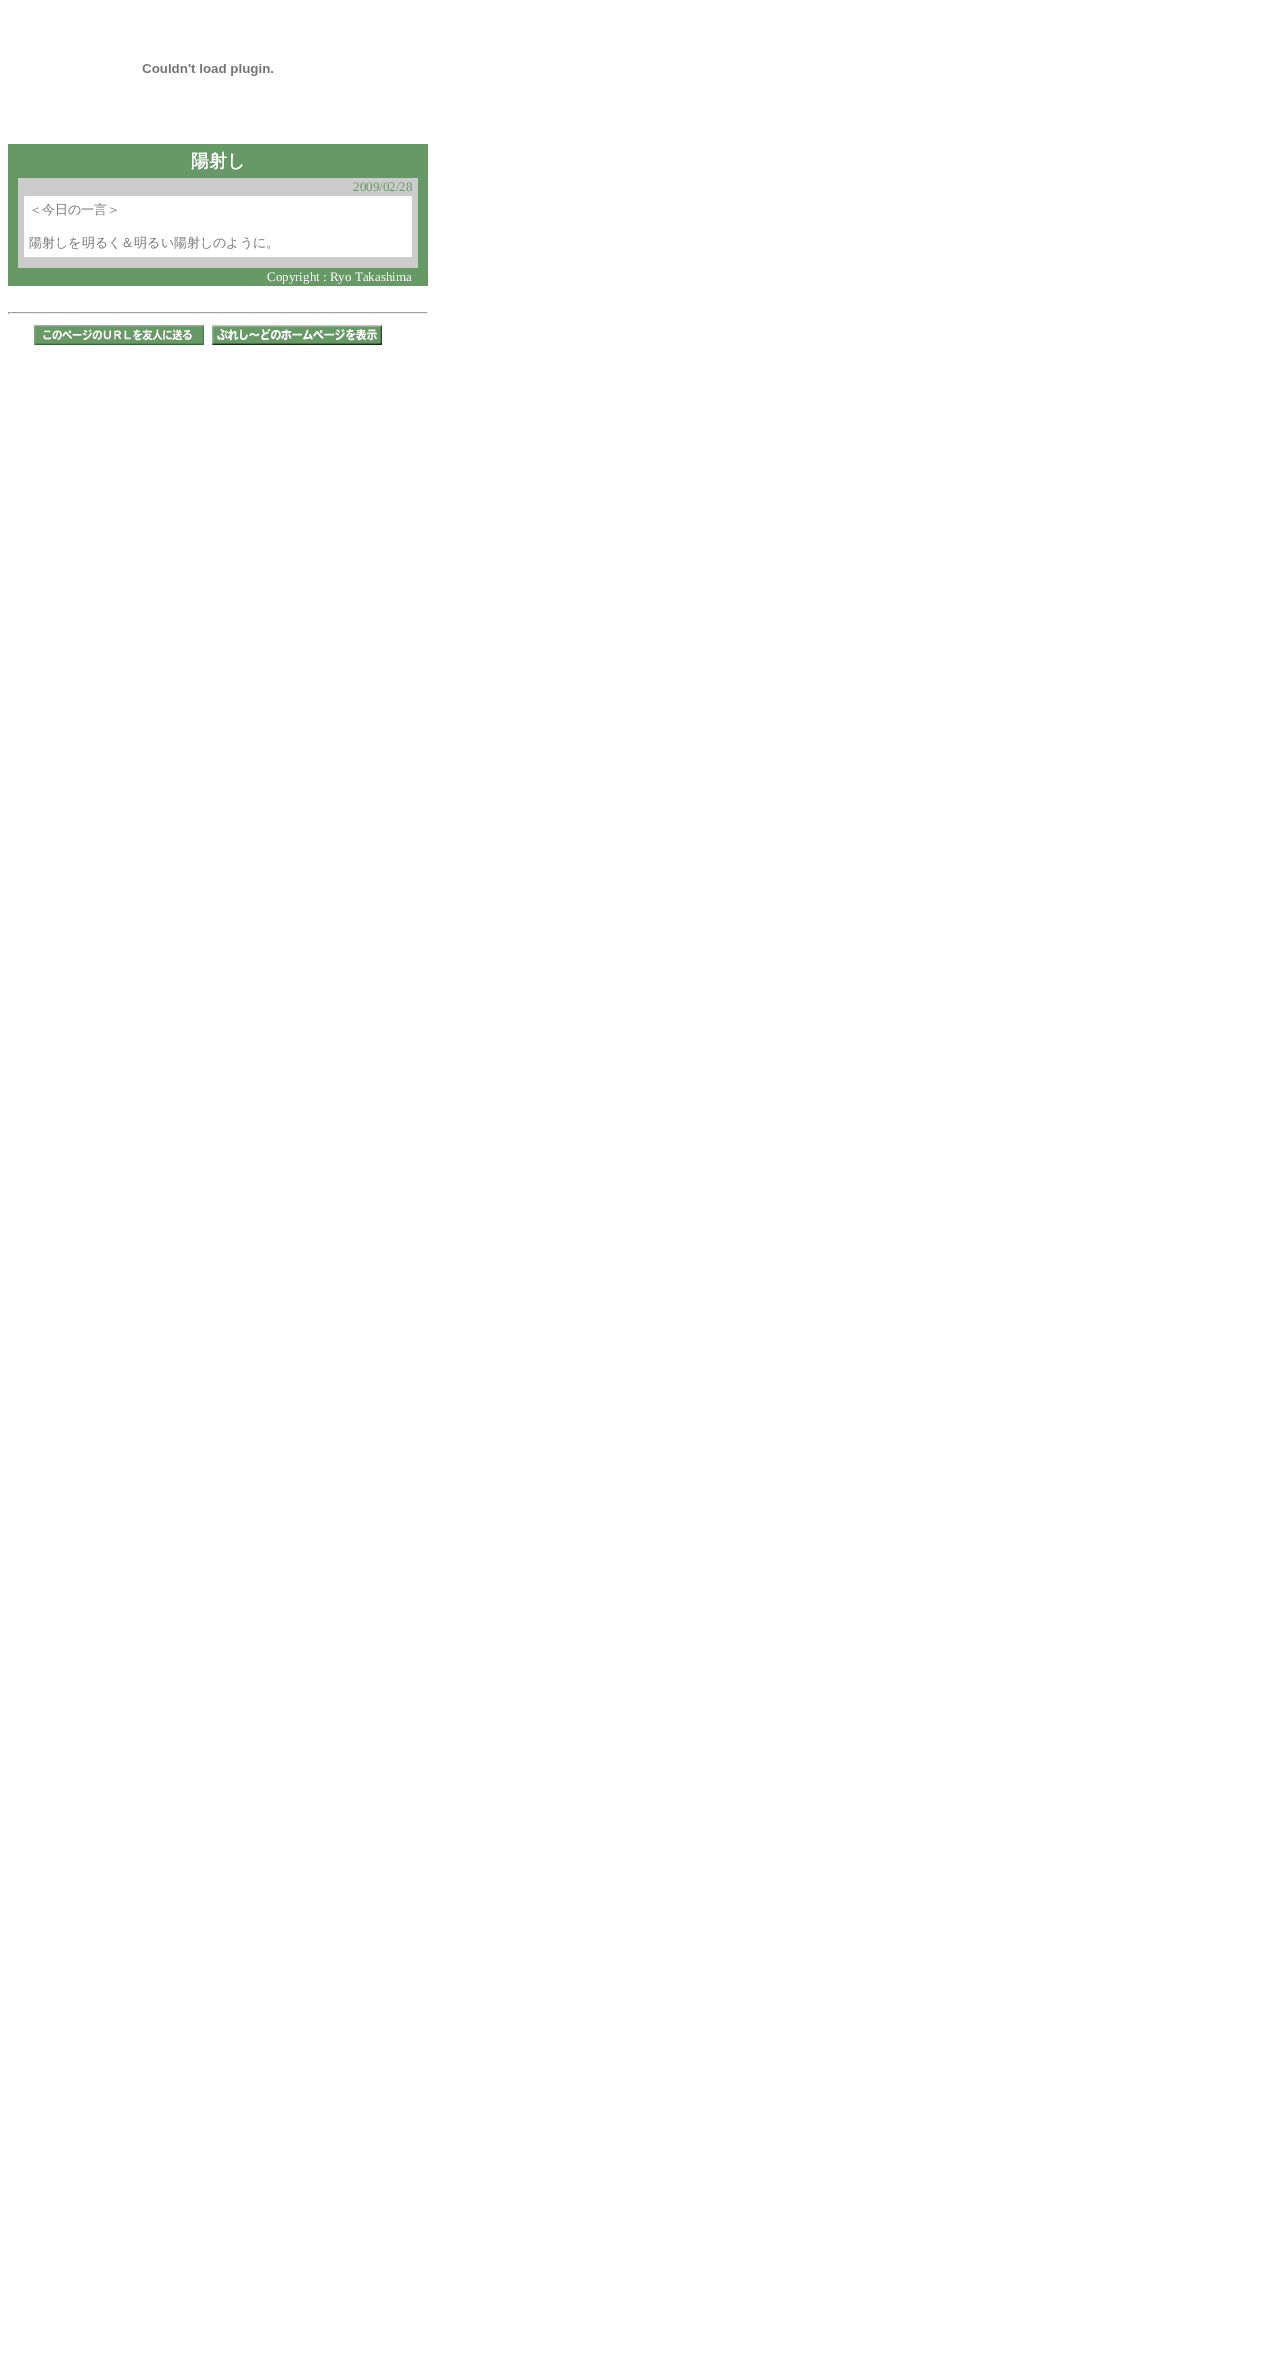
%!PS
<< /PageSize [1275 2353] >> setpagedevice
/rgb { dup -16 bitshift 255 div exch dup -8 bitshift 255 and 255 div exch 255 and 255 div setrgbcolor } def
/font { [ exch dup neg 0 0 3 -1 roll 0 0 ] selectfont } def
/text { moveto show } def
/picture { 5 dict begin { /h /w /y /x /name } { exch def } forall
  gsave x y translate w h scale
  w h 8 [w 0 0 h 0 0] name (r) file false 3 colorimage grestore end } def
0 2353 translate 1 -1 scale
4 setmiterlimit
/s1 { /WenQuanYiZenHei-Bold 18 font 16#FFFFFF rgb } def
/s2 { /LiberationSerif-Regular 13 font 16#669966 rgb } def
/s3 { /WenQuanYiZenHei-Medium 13 font 16#777777 rgb } def
/s4 { /LiberationSerif-Regular 13 font 16#FFFFFF rgb } def
16#FFFFFF rgb
0 0 1275 2353 rectfill
(pic1.raw) 142 64 131 12 picture
16#669966 rgb
8 144 420 34 rectfill
s1
(陽射し) 191 167 text
16#669966 rgb
8 178 10 108 rectfill
16#CCCCCC rgb
18 178 400 18 rectfill
16#669966 rgb
418 178 10 90 rectfill
s2
(2009/02/28) 353 191 text
16#CCCCCC rgb
18 196 6 72 rectfill
s3
(＜今日の一言＞) 29 214 text
(陽射しを明るく＆明るい陽射しのように。) 29 247 text
16#CCCCCC rgb
412 196 6 61 rectfill
24 257 394 11 rectfill
16#669966 rgb
18 268 410 18 rectfill
s4
(Copyright : Ryo Takashima) 267 281 text
16#9F9F9F rgb
8 312 420 1 rectfill
16#EEEEEE rgb
427 312 1 2 rectfill
8 313 420 1 rectfill
16#9F9F9F rgb
8 312 1 2 rectfill
(pic2.raw) 34 325 170 20 picture
(pic3.raw) 212 325 170 20 picture
showpage
